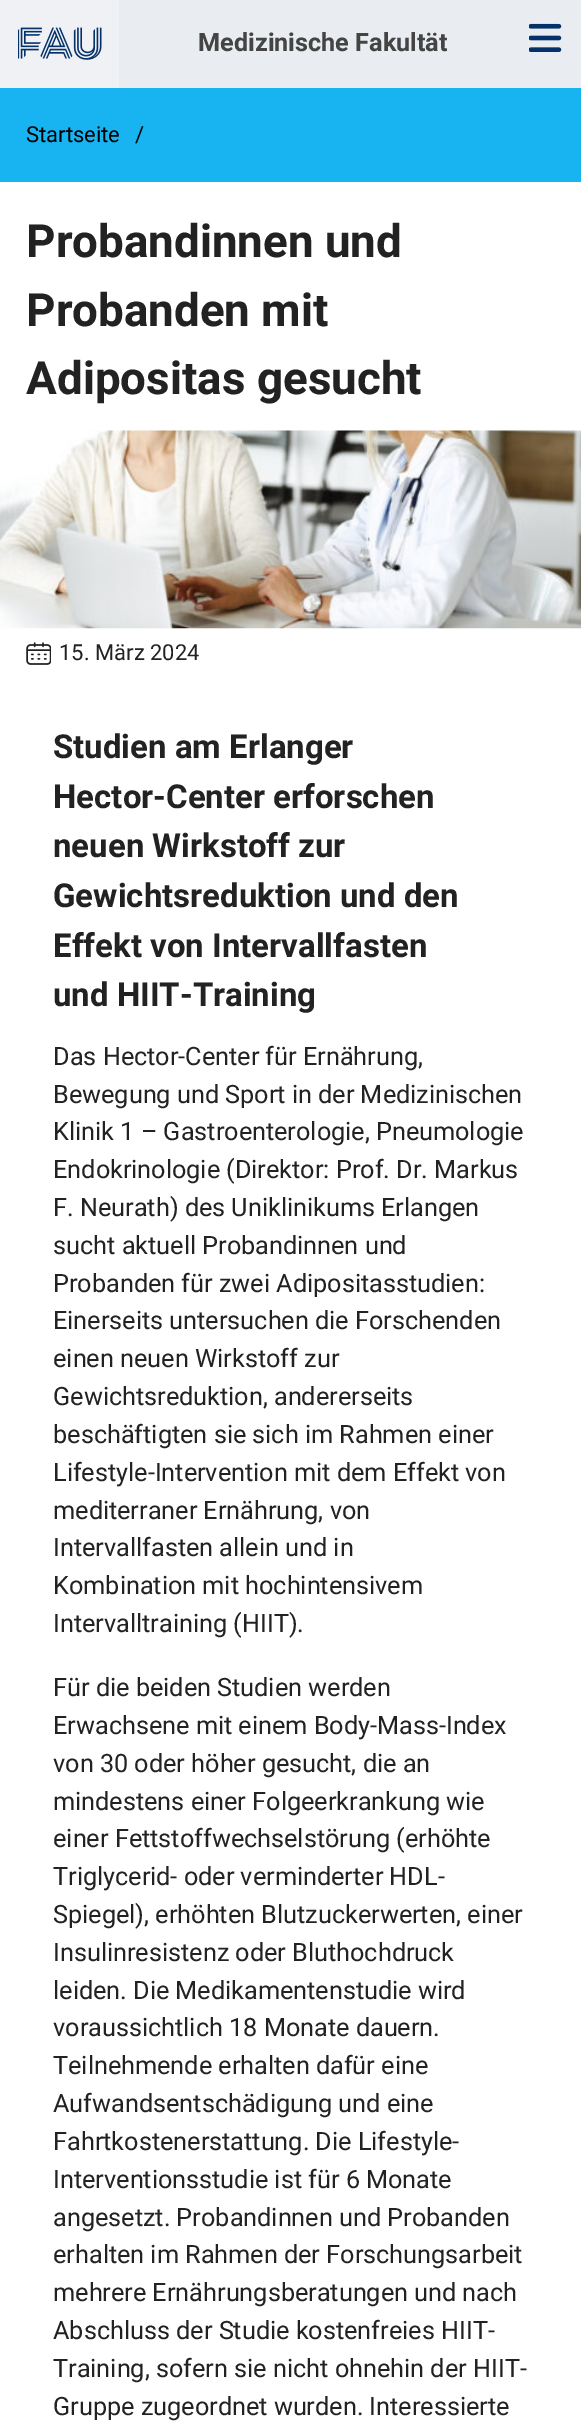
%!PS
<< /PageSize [581 2431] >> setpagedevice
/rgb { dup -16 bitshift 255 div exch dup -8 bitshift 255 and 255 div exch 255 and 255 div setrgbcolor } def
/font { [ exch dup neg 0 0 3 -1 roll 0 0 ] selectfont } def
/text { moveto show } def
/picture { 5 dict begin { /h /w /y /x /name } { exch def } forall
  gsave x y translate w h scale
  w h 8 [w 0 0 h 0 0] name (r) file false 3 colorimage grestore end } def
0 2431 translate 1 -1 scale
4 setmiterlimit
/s1 { /Roboto-Bold 25.25 font 16#444444 rgb } def
/s2 { /Roboto-Regular 22 font 16#000000 rgb } def
/s3 { /Roboto-Bold 45.75 font 16#222222 rgb } def
/s4 { /Roboto-Regular 22 font 16#222222 rgb } def
/s5 { /Roboto-Bold 33 font 16#222222 rgb } def
/s6 { /Roboto-Regular 25.25 font 16#222222 rgb } def
16#FFFFFF rgb
0 0 581 2431 rectfill
16#E9EDF2 rgb
119 0 462 88 rectfill
16#EFF1F4 rgb
0 0 119 88 rectfill
(pic1.raw) 18 27 84 33 picture
s1
(Medizinische Fakultät) 198 51 text
(pic2.raw) 529 23 33 29 picture
16#18B4F1 rgb
0 88 581 94 rectfill
s2
(Startseite) 26 142 text
(/) 135 142 text
s3
(Probandinnen und) 26 257 text
(Probanden mit) 26 326 text
(Adipositas gesucht) 26 394 text
(pic3.raw) 0 430 581 199 picture
(pic4.raw) 26 642 25 23 picture
s4
(15. März 2024) 59 660 text
s5
(Studien am Erlanger) 53 758 text
(Hector-Center erforschen) 53 808 text
(neuen Wirkstoff zur) 53 857 text
(Gewichtsreduktion und den) 53 907 text
(Effekt von Intervallfasten) 53 957 text
(und HIIT-Training) 53 1006 text
s6
(Das Hector-Center für Ernährung,) 53 1065 text
(Bewegung und Sport in der Medizinischen) 53 1103 text
(Klinik 1 – Gastroenterologie, Pneumologie) 53 1140 text
(Endokrinologie \(Direktor: Prof. Dr. Markus) 53 1178 text
(F. Neurath\) des Uniklinikums Erlangen) 53 1216 text
(sucht aktuell Probandinnen und) 53 1254 text
(Probanden für zwei Adipositasstudien:) 53 1292 text
(Einerseits untersuchen die Forschenden) 53 1329 text
(einen neuen Wirkstoff zur) 53 1367 text
(Gewichtsreduktion, andererseits) 53 1405 text
(beschäftigten sie sich im Rahmen einer) 53 1443 text
(Lifestyle-Intervention mit dem Effekt von) 53 1481 text
(mediterraner Ernährung, von) 53 1519 text
(Intervallfasten allein und in) 53 1556 text
(Kombination mit hochintensivem) 53 1594 text
(Intervalltraining \(HIIT\).) 53 1632 text
(Für die beiden Studien werden) 53 1696 text
(Erwachsene mit einem Body-Mass-Index) 53 1734 text
(von 30 oder höher gesucht, die an) 53 1772 text
(mindestens einer Folgeerkrankung wie) 53 1810 text
(einer Fettstoffwechselstörung \(erhöhte) 53 1847 text
(Triglycerid- oder verminderter HDL-) 53 1885 text
(Spiegel\), erhöhten Blutzuckerwerten, einer) 53 1923 text
(Insulinresistenz oder Bluthochdruck) 53 1961 text
(leiden. Die Medikamentenstudie wird) 53 1999 text
(voraussichtlich 18 Monate dauern.) 53 2036 text
(Teilnehmende erhalten dafür eine) 53 2074 text
(Aufwandsentschädigung und eine) 53 2112 text
(Fahrtkostenerstattung. Die Lifestyle-) 53 2150 text
(Interventionsstudie ist für 6 Monate) 53 2188 text
(angesetzt. Probandinnen und Probanden) 53 2226 text
(erhalten im Rahmen der Forschungsarbeit) 53 2263 text
(mehrere Ernährungsberatungen und nach) 53 2301 text
(Abschluss der Studie kostenfreies HIIT-) 53 2339 text
(Training, sofern sie nicht ohnehin der HIIT-) 53 2377 text
(Gruppe zugeordnet wurden. Interessierte) 53 2415 text
showpage
